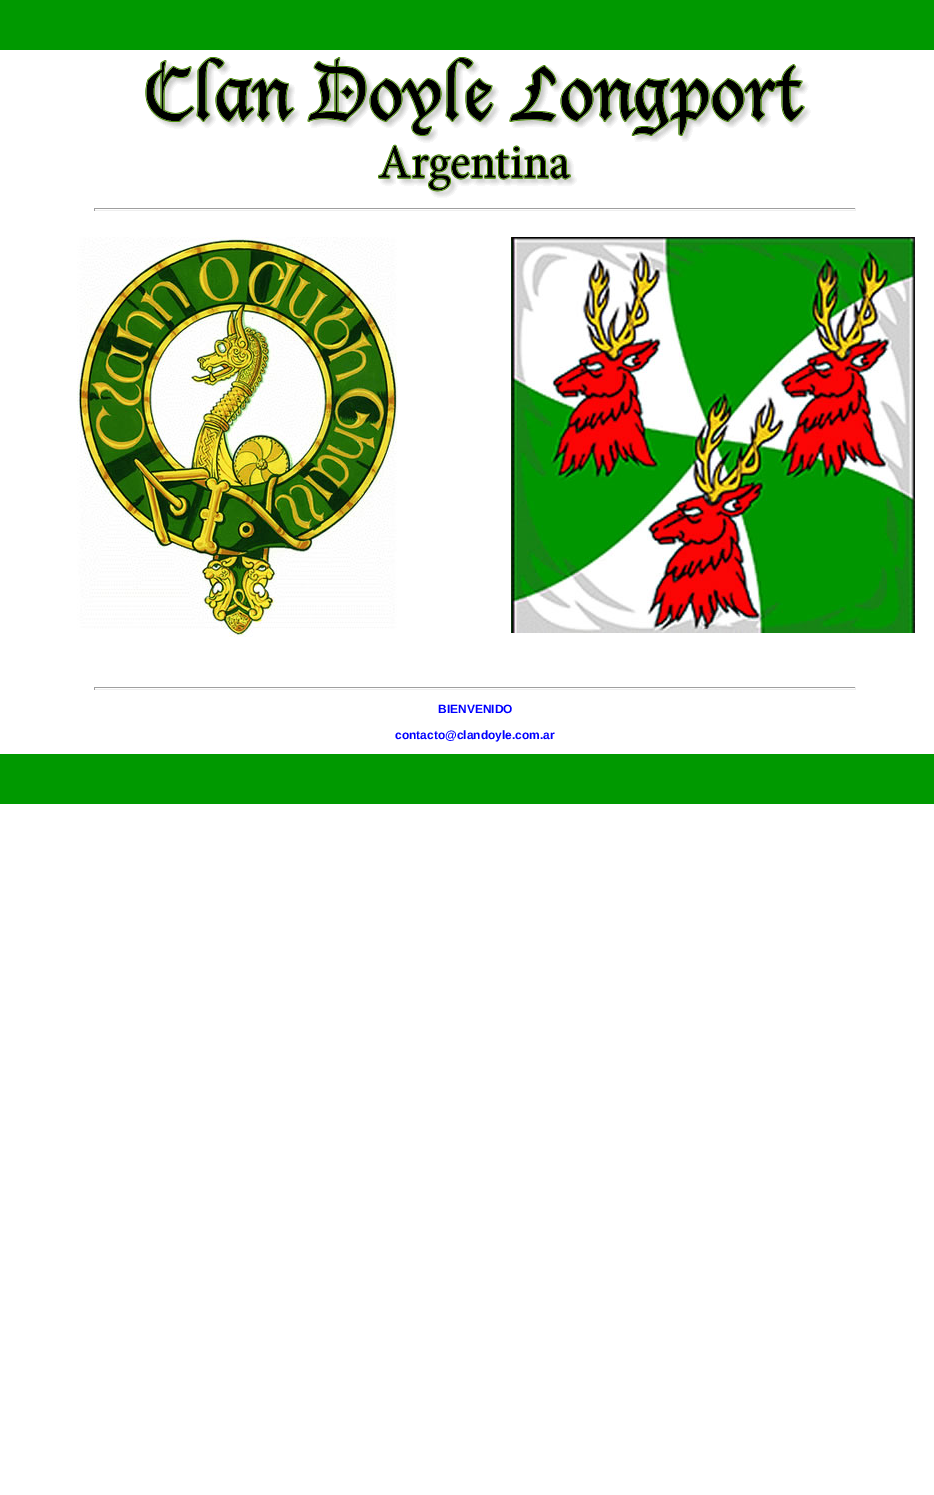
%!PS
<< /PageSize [934 1495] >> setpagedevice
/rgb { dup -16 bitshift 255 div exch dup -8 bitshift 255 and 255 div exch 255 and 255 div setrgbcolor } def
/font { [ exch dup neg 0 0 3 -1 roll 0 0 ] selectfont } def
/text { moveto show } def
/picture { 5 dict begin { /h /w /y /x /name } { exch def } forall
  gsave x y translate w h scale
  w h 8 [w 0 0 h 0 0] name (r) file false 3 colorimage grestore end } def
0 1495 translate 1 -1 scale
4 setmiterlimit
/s1 { /LiberationSans-Bold 12 font 16#0000FF rgb } def
16#FFFFFF rgb
0 0 934 1495 rectfill
16#009900 rgb
0 0 934 804 rectfill
16#FFFFFF rgb
0 50 934 704 rectfill
(pic1.raw) 145 57 666 141 picture
16#9F9F9F rgb
94 208 762 1 rectfill
16#EEEEEE rgb
855 208 1 3 rectfill
94 210 762 1 rectfill
16#9F9F9F rgb
94 208 1 3 rectfill
(pic2.raw) 77 237 321 400 picture
(pic3.raw) 511 237 404 396 picture
94 687 762 1 rectfill
16#EEEEEE rgb
855 687 1 3 rectfill
94 689 762 1 rectfill
16#9F9F9F rgb
94 687 1 3 rectfill
s1
(BIENVENIDO) 438 713 text
(contacto@clandoyle.com.ar) 395 739 text
showpage
